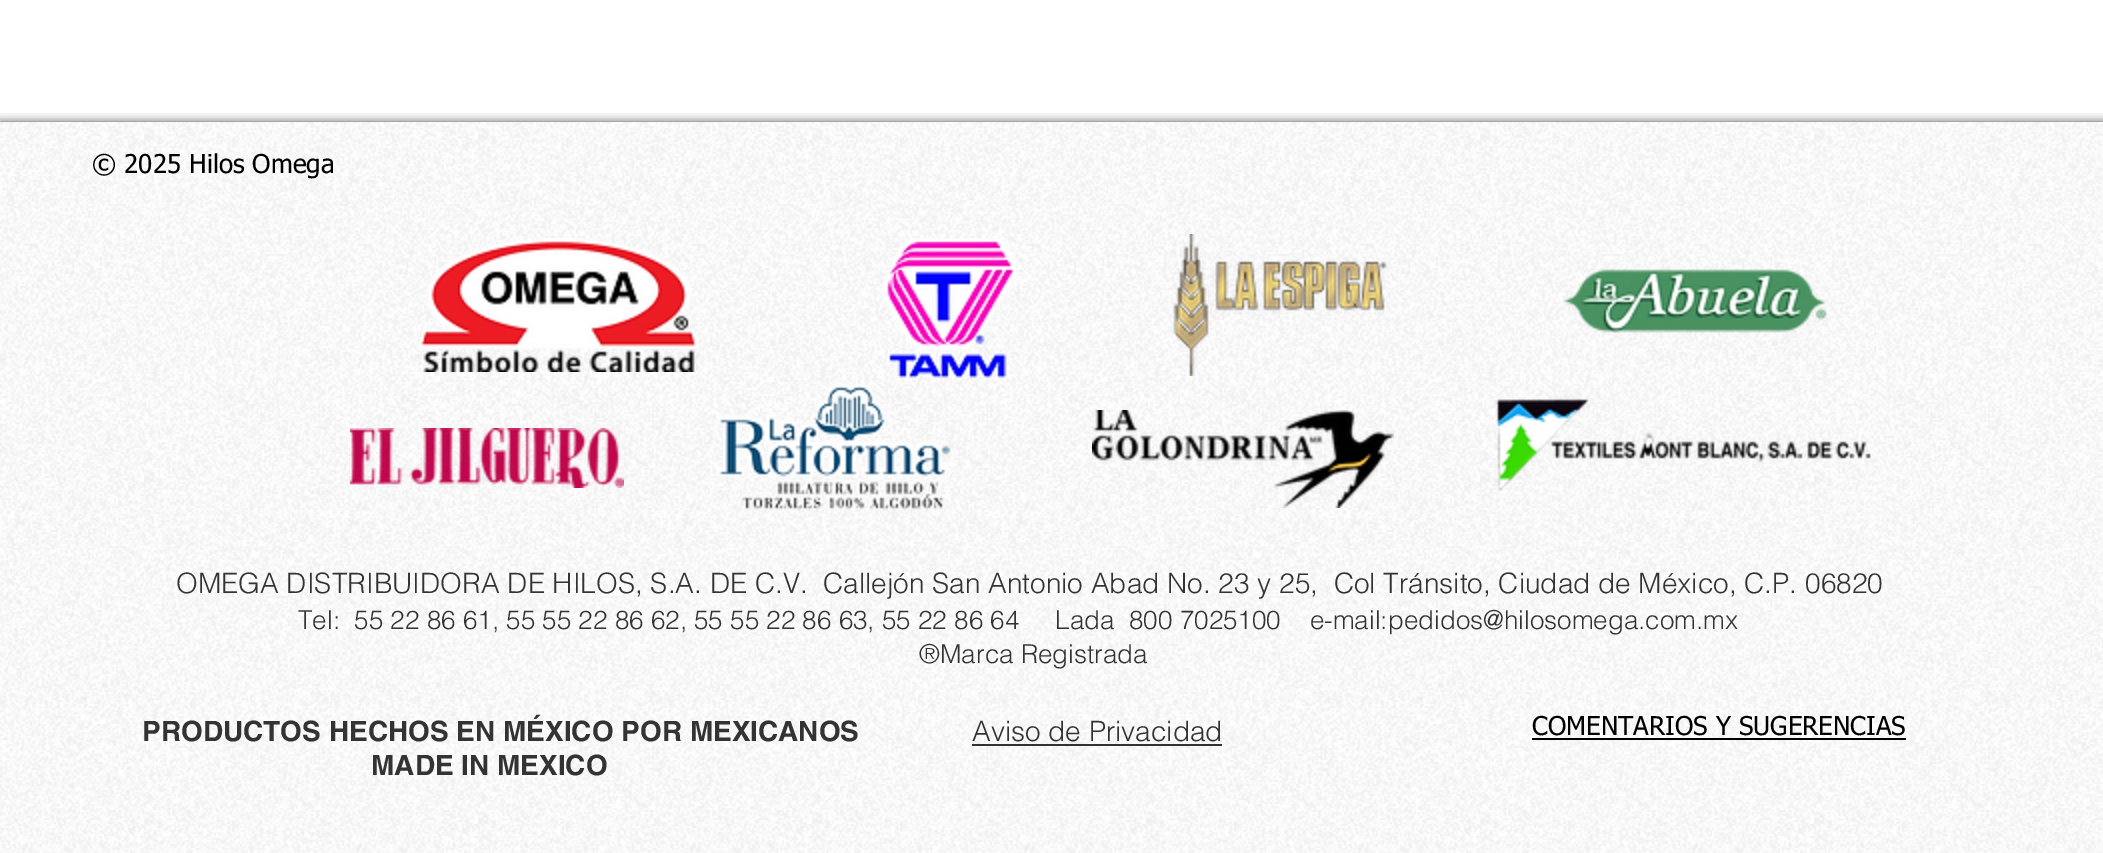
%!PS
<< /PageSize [2103 853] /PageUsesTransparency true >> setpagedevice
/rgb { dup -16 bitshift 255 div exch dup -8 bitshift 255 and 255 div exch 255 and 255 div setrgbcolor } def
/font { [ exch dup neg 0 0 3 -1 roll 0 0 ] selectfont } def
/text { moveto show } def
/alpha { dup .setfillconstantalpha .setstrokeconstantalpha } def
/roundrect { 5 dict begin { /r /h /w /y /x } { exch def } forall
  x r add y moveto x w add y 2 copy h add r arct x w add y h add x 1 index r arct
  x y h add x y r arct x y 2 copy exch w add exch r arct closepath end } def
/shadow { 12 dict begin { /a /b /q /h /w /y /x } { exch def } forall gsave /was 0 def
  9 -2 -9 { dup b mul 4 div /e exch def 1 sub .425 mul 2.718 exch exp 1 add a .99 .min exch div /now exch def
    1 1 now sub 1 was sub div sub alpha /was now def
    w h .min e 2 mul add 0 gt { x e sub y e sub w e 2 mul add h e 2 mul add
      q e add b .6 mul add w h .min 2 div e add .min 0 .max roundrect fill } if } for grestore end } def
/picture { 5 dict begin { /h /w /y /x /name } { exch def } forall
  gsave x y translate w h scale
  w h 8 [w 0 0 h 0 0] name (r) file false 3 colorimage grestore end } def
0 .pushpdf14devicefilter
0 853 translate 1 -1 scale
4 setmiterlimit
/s1 { /tahoma-Regular 26 font 16#000000 rgb } def
/s2 { /helvetica-Light 28 font 16#333333 rgb } def
/s3 { /helvetica-Light 26 font 16#333333 rgb } def
/s4 { /helvetica-Bold 28 font 16#333333 rgb } def
16#FFFFFF rgb
0 0 2103 853 rectfill
gsave
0 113 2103 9 rectclip
16#000000 rgb
0 122 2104 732 0 5 0.7 shadow
grestore
(pic1.raw) 0 122 2103 731 picture
s1
(© 2025 Hilos Omega) 92 173 text
(pic2.raw) 420 238 279 134 picture
(pic3.raw) 882 238 134 140 picture
(pic4.raw) 1173 234 214 142 picture
(pic5.raw) 1563 269 264 64 picture
(pic6.raw) 350 428 274 60 picture
(pic7.raw) 717 383 234 128 picture
(pic8.raw) 1092 410 302 98 picture
(pic9.raw) 1495 398 376 94 picture
s2
(OMEGA DISTRIBUIDORA DE HILOS, S.A. DE C.V.  Callejón San Antonio Abad No. 23 y 25,  Col Tránsito, Ciudad de México, C.P. 06820) 176 593 text
s3
(Tel:  55 22 86 61, 55 55 22 86 62, 55 55 22 86 63, 55 22 86 64     Lada  800 7025100    e-mail:pedidos@hilosomega.com.mx) 298 629 text
(®Marca Registrada) 919 663 text
s4
(PRODUCTOS HECHOS EN MÉXICO POR MEXICANOS) 142 741 text
(MADE IN MEXICO) 371 775 text
s2
(Aviso de Privacidad) 972 741 text
972 744 250 2 rectfill
s1
(COMENTARIOS Y SUGERENCIAS) 1532 735 text
1532 738 374 2 rectfill
.poppdf14devicefilter showpage
